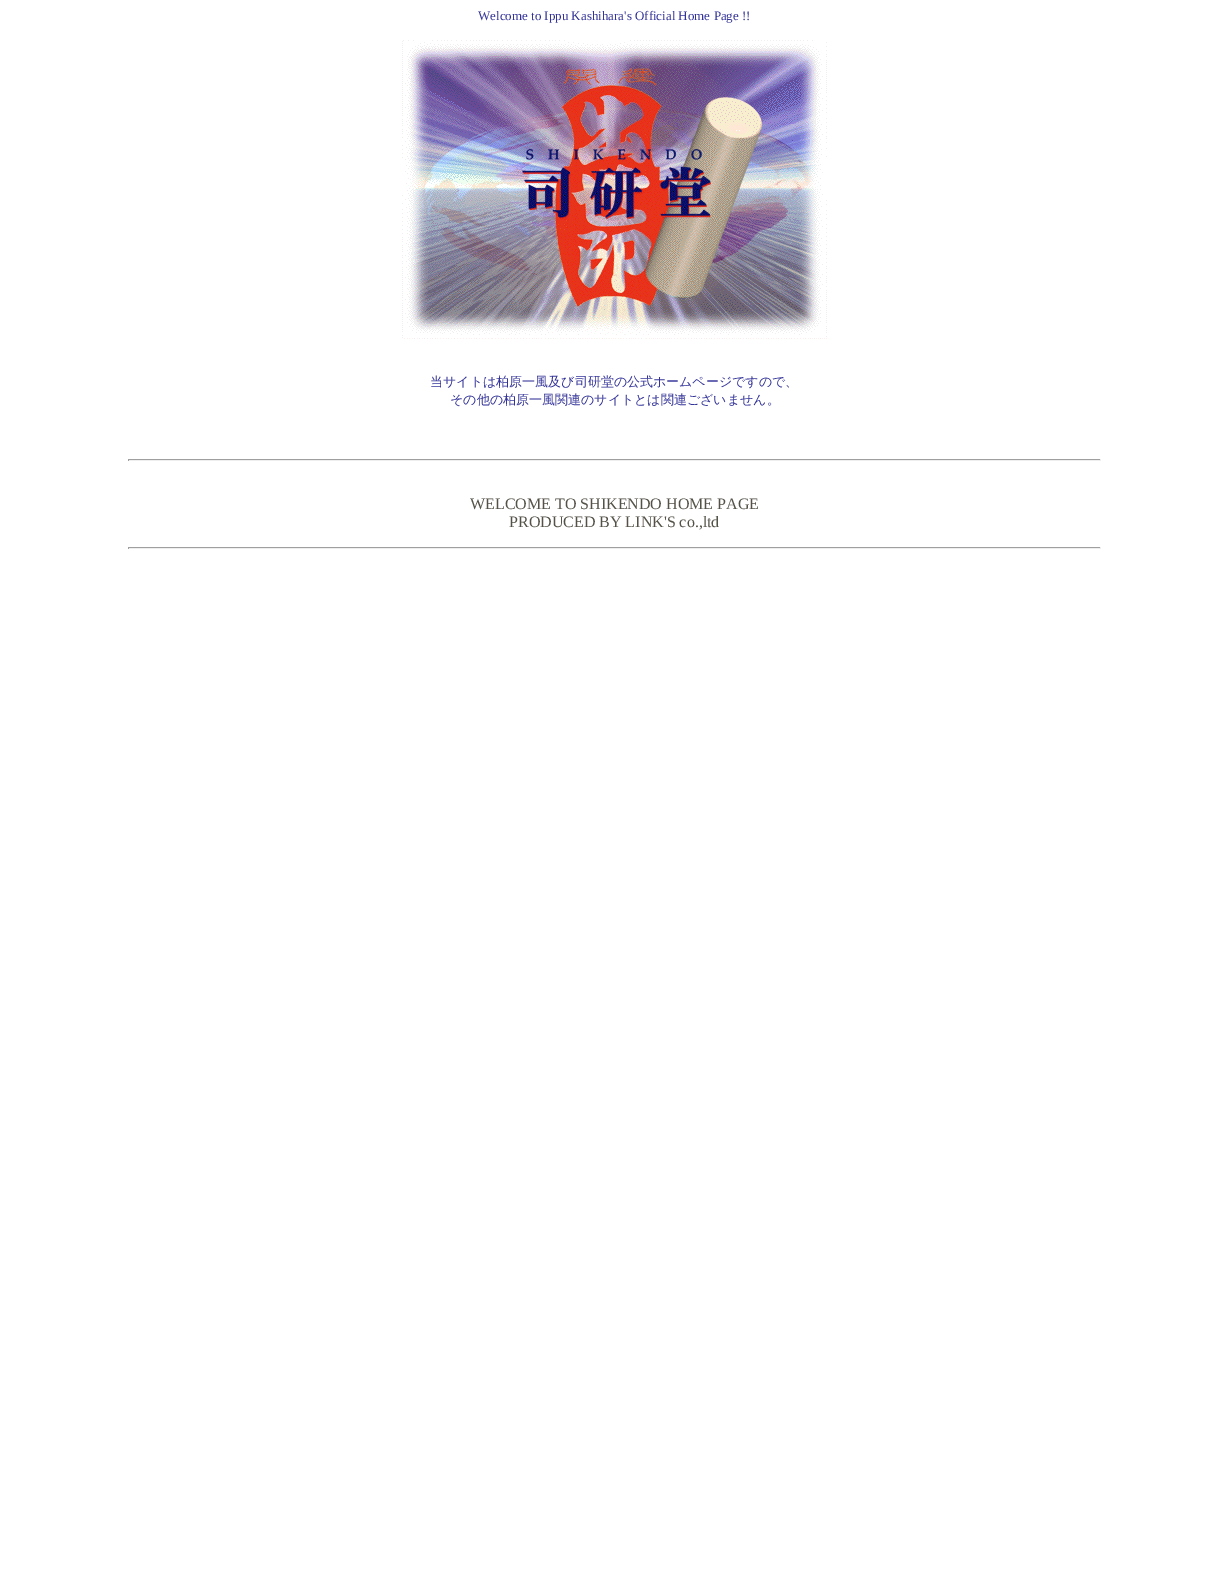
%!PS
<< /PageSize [1229 1593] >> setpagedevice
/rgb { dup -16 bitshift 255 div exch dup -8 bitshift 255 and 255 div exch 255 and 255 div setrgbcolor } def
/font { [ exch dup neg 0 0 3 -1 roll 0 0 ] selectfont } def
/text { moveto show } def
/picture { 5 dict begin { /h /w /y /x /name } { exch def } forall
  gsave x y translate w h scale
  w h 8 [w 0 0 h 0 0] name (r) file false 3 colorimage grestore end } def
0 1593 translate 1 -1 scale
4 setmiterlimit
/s1 { /LiberationSerif-Regular 13 font 16#333399 rgb } def
/s2 { /WenQuanYiZenHei-Medium 13 font 16#333399 rgb } def
/s3 { /LiberationSerif-Regular 16 font 16#545147 rgb } def
16#FFFFFF rgb
0 0 1229 1593 rectfill
s1
(Welcome to Ippu Kashihara's Official Home Page !!) 478 20 text
(pic1.raw) 402 40 425 299 picture
s2
(当サイトは柏原一風及び司研堂の公式ホームページですので、) 430 386 text
(その他の柏原一風関連のサイトとは関連ございません。) 450 404 text
16#9F9F9F rgb
128 459 973 1 rectfill
16#EEEEEE rgb
1100 459 1 2 rectfill
128 460 973 1 rectfill
16#9F9F9F rgb
128 459 1 2 rectfill
s3
(WELCOME TO SHIKENDO HOME PAGE) 470 509 text
(PRODUCED BY LINK'S co.,ltd) 509 527 text
16#9F9F9F rgb
128 547 973 1 rectfill
16#EEEEEE rgb
1100 547 1 2 rectfill
128 548 973 1 rectfill
16#9F9F9F rgb
128 547 1 2 rectfill
showpage
